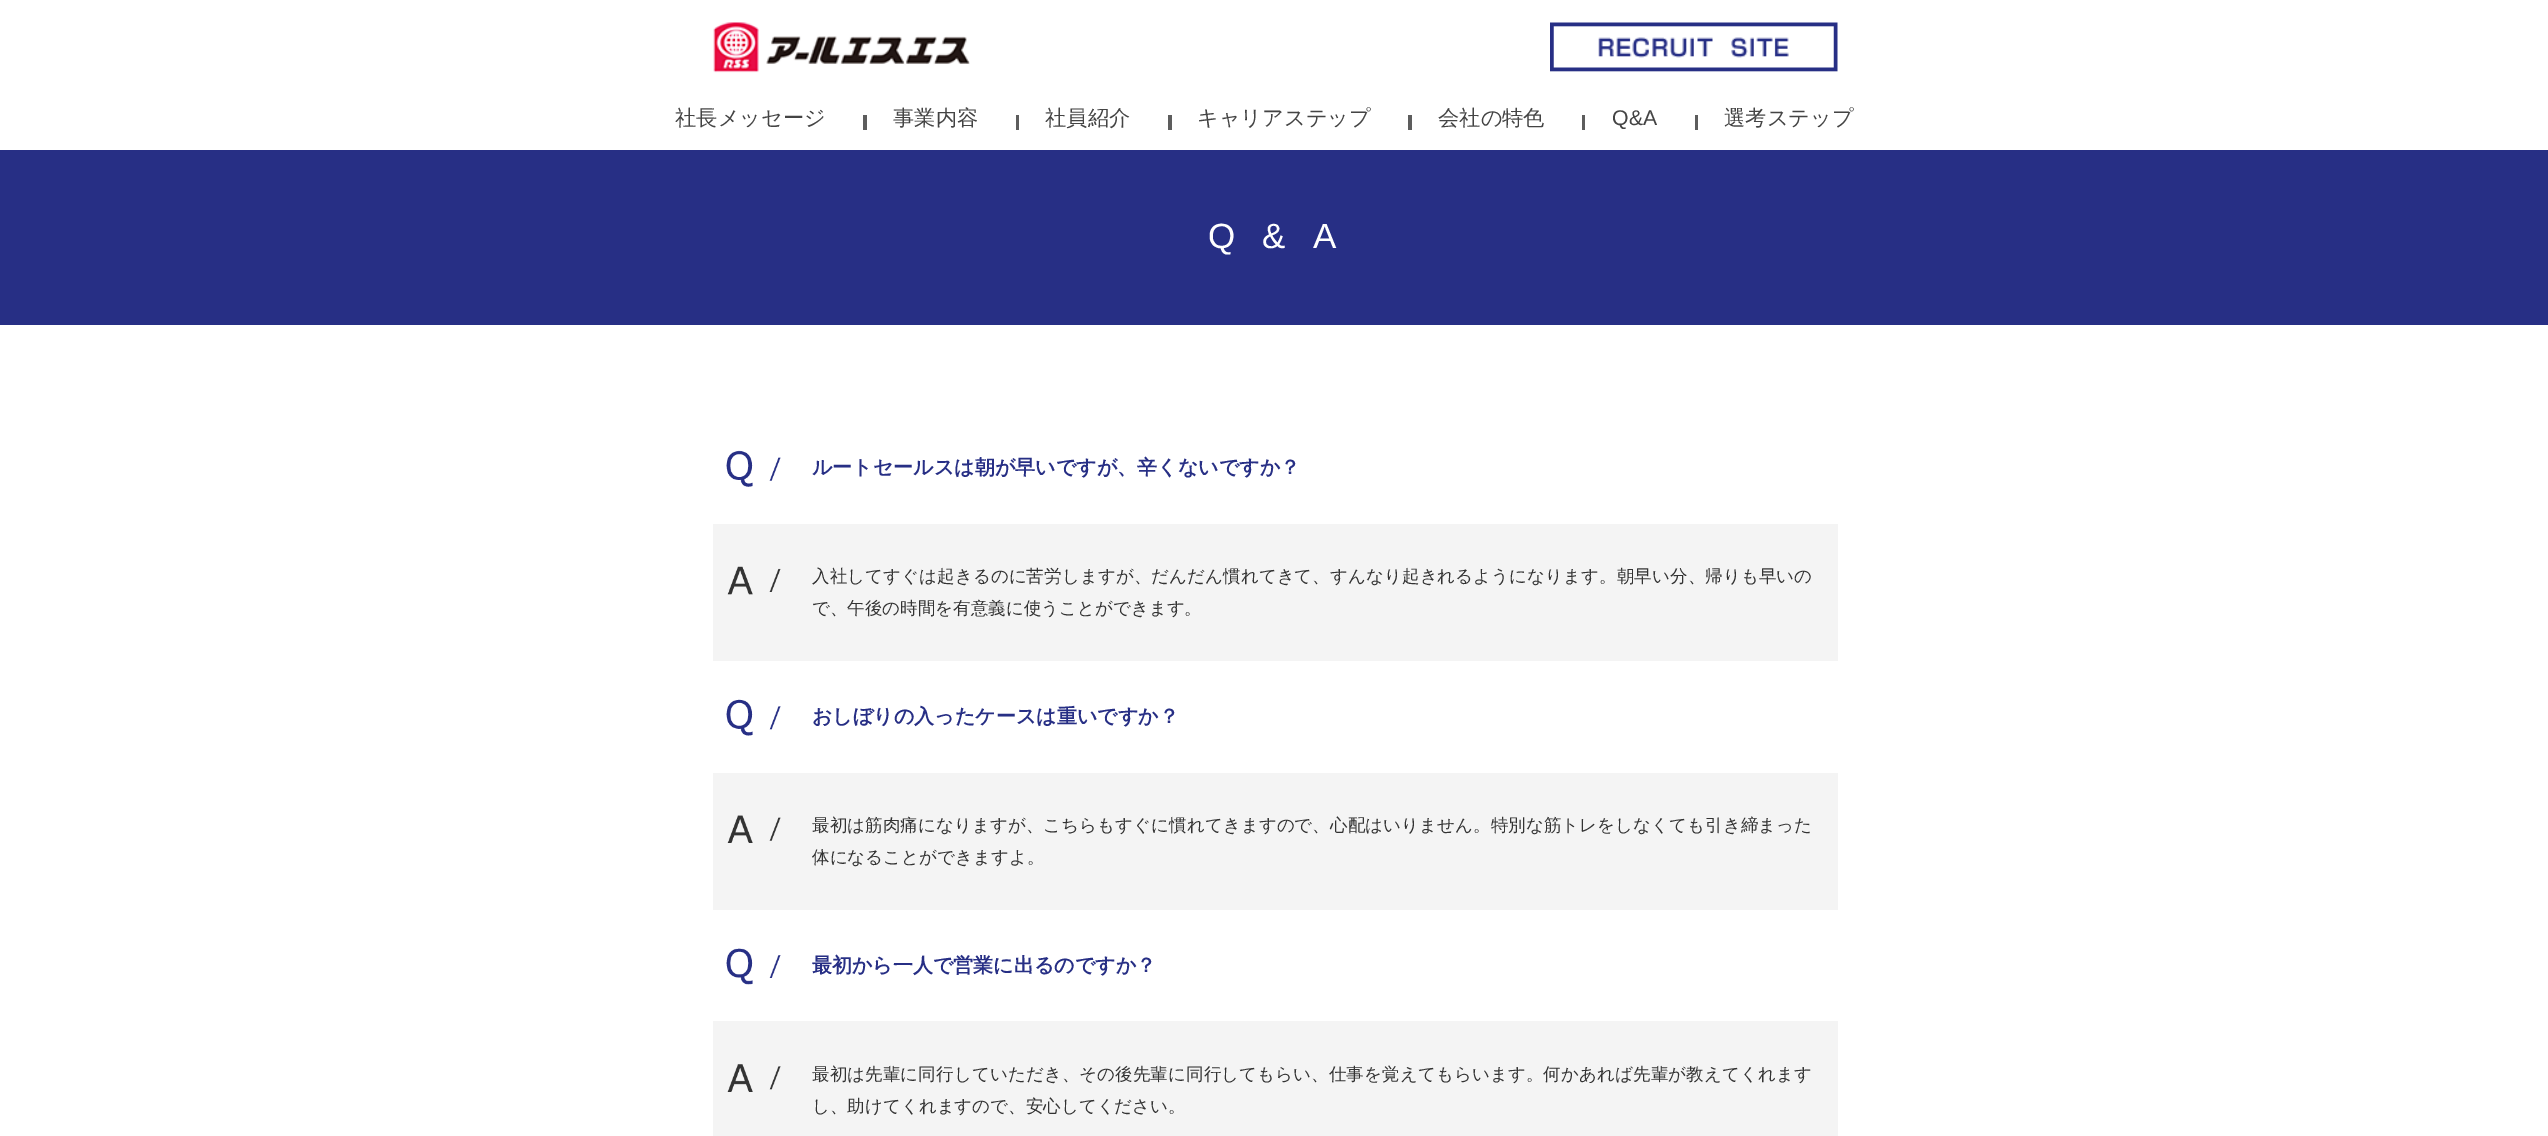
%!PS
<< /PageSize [2548 1136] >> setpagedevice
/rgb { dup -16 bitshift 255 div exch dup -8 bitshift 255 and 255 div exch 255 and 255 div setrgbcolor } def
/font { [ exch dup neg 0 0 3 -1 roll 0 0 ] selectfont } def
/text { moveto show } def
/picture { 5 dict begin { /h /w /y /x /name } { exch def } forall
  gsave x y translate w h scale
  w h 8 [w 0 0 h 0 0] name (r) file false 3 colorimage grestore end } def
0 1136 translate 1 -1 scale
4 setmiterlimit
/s1 { /WenQuanYiZenHei-Medium 21.25 font 16#444444 rgb } def
/s2 { /LiberationSans-Regular 21.25 font 16#444444 rgb } def
/s3 { /WenQuanYiZenHei-Bold 20 font 16#272F85 rgb } def
/s4 { /WenQuanYiZenHei-Medium 17.5 font 16#333333 rgb } def
16#FFFFFF rgb
0 0 2548 1136 rectfill
(pic1.raw) 713 22 257 51 picture
(pic2.raw) 1550 22 288 50 picture
s1
(社長メッセージ) 675 125 text
16#5D5D5D rgb
863 115 4 15 rectfill
s1
(事業内容) 893 125 text
16#5D5D5D rgb
1016 115 3 15 rectfill
s1
(社員紹介) 1045 125 text
16#5D5D5D rgb
1168 115 4 15 rectfill
s1
(キャリアステップ) 1197 125 text
16#5D5D5D rgb
1408 115 4 15 rectfill
s1
(会社の特色) 1438 125 text
16#5D5D5D rgb
1582 115 3 15 rectfill
s2
(Q&A) 1612 125 text
16#5D5D5D rgb
1695 115 3 15 rectfill
s1
(選考ステップ) 1724 125 text
16#272F85 rgb
0 150 2548 175 rectfill
/LiberationSans-Regular 35 font
16#FFFFFF rgb
1208 248 moveto 8.75 0 (Q & A) ashow
(pic3.raw) 726 450 55 37 picture
s3
(ルートセールスは朝が早いですが、辛くないですか？) 812 474 text
16#F4F4F4 rgb
713 524 1125 137 rectfill
(pic4.raw) 727 566 54 29 picture
/WenQuanYiZenHei-Medium 17.5 font
16#333333 rgb
812 582 moveto 0.07 0 (入社してすぐは起きるのに苦労しますが、だんだん慣れてきて、すんなり起きれるようになります。朝早い分、帰りも早いの) ashow
(で、午後の時間を有意義に使うことができます。) 812 614 text
(pic5.raw) 726 699 55 37 picture
s3
(おしぼりの入ったケースは重いですか？) 812 723 text
16#F4F4F4 rgb
713 773 1125 137 rectfill
(pic6.raw) 727 815 54 28 picture
/WenQuanYiZenHei-Medium 17.5 font
16#333333 rgb
812 831 moveto 0.07 0 (最初は筋肉痛になりますが、こちらもすぐに慣れてきますので、心配はいりません。特別な筋トレをしなくても引き締まった) ashow
(体になることができますよ。) 812 863 text
(pic7.raw) 726 948 55 37 picture
s3
(最初から一人で営業に出るのですか？) 812 972 text
16#F4F4F4 rgb
713 1021 1125 115 rectfill
(pic8.raw) 727 1064 54 28 picture
/WenQuanYiZenHei-Medium 17.5 font
16#333333 rgb
812 1080 moveto 0.1 0 (最初は先輩に同行していただき、その後先輩に同行してもらい、仕事を覚えてもらいます。何かあれば先輩が教えてくれます) ashow
(し、助けてくれますので、安心してください。) 812 1112 text
showpage
